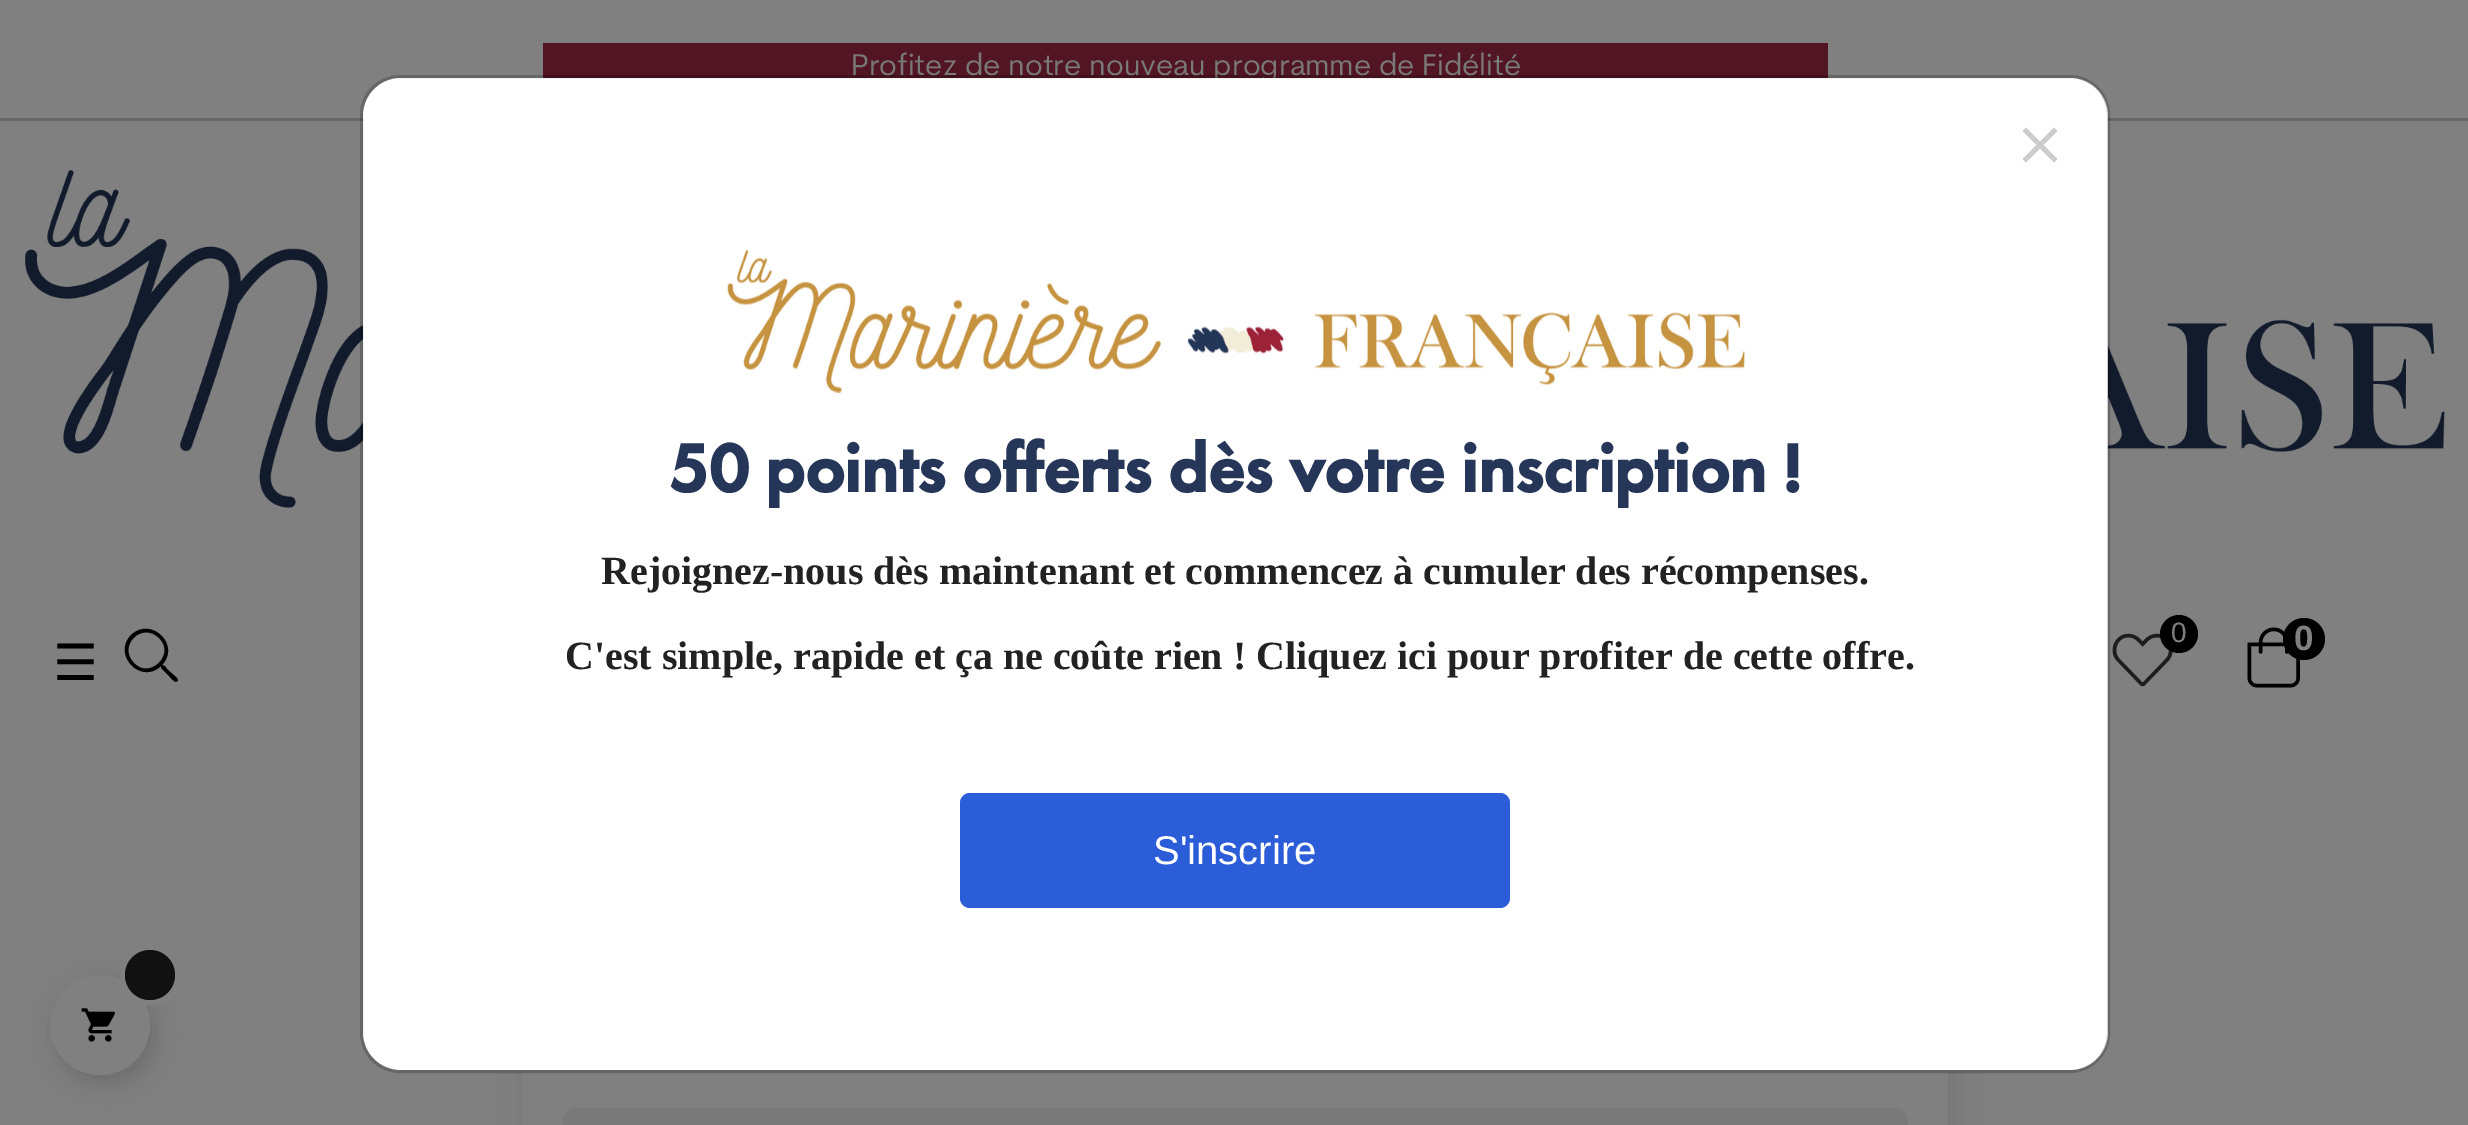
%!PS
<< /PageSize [2468 1125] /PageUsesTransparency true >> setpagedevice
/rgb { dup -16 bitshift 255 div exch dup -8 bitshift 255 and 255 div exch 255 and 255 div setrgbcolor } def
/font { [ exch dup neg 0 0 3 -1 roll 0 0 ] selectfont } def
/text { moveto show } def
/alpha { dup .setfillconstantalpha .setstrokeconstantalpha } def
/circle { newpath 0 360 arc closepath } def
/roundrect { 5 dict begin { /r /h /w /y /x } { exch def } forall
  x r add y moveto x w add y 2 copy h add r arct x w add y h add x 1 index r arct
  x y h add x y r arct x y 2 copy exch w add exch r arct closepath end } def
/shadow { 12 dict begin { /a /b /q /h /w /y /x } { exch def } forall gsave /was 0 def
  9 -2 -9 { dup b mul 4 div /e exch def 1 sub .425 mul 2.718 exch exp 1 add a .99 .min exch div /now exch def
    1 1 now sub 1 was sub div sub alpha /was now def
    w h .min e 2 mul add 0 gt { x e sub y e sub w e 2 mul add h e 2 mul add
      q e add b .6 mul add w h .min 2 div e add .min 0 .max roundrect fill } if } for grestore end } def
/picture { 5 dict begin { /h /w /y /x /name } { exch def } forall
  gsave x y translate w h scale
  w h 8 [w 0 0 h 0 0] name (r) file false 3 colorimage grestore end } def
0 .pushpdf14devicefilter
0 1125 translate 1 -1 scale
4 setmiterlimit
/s1 { /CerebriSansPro-Regular 30 font 16#797979 rgb } def
/s2 { /LiberationSans-Regular 28 font 16#808080 rgb } def
/s3 { /LiberationSans-Bold 35 font 16#808080 rgb } def
/s4 { /DejaVuSans-Regular 50 font 16#000000 rgb } def
/s5 { /FuturaPT-Bold 70 font 16#253659 rgb } def
/s6 { /LiberationSerif-Bold 40 font 16#222222 rgb } def
/s7 { /LiberationSans-Regular 40 font 16#FFFFFF rgb } def
16#808080 rgb
0 0 2468 1125 rectfill
16#666666 rgb
0 118 2468 3 rectfill
16#521524 rgb
543 43 1285 35 rectfill
s1
(Profitez de notre nouveau programme de Fidélité) 851 75 text
(pic1.raw) 25 170 2420 338 picture
(pic2.raw) 2112 633 61 54 picture
16#000000 rgb
2179 634 19 circle fill
s2
(0) 2171 642 text
(pic3.raw) 2247 627 53 61 picture
16#000000 rgb
2304 639 21 circle fill
s3
(0) 2294 650 text
s4
(☰) 53 680 text
177 678 moveto 178 680 lineto 176 685 171 678 170 677 curveto 163 670 lineto 161 668 161 668 161 666 curveto 141 685 112 655 131 635 curveto 151 616 181 645 162 665 curveto 165 665 166 668 168 670 curveto closepath 134 663 moveto 150 680 176 654 159 638 curveto 142 621 117 646 134 663 curveto closepath fill
528 828 1425 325 0 14 0.1 shadow
16#808080 rgb
523 1070 1425 55 rectfill
16#797979 rgb
563 1108 1345 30 13 roundrect fill
16#FFFFFF rgb
363 78 1745 992 38 roundrect fill
0.2 alpha
16#000000 rgb
3 setlinewidth
361.5 76.5 1747 995 38.5 roundrect stroke
1 alpha
16#CCCCCC rgb
2057.5 131 moveto 2043.5 145 lineto 2057.5 159 lineto 2054 162.5 lineto 2040 148.5 lineto 2026 162.5 lineto 2022.5 159 lineto 2036.5 145 lineto 2022.5 131 lineto 2026 127.5 lineto 2040 141.5 lineto 2054 127.5 lineto closepath fill
(pic4.raw) 727 249 1018 144 picture
s5
(50 points offerts dès votre inscription !) 669 492 text
s6
(Rejoignez-nous dès maintenant et commencez à cumuler des récompenses.) 601 584 text
(C'est simple, rapide et ça ne coûte rien ! Cliquez ici pour profiter de cette offre.) 565 669 text
16#2C5DD9 rgb
960 793 550 115 10 roundrect fill
s7
(S'inscrire) 1153 864 text
16#000000 rgb
55 983 100 100 50 12.5 0.15 shadow
16#808080 rgb
100 1025 50 circle fill
(pic5.raw) 81 1008 34 34 picture
5 setlinewidth
150 975 27.5 circle stroke
16#111111 rgb
150 975 25 circle fill
.poppdf14devicefilter showpage
